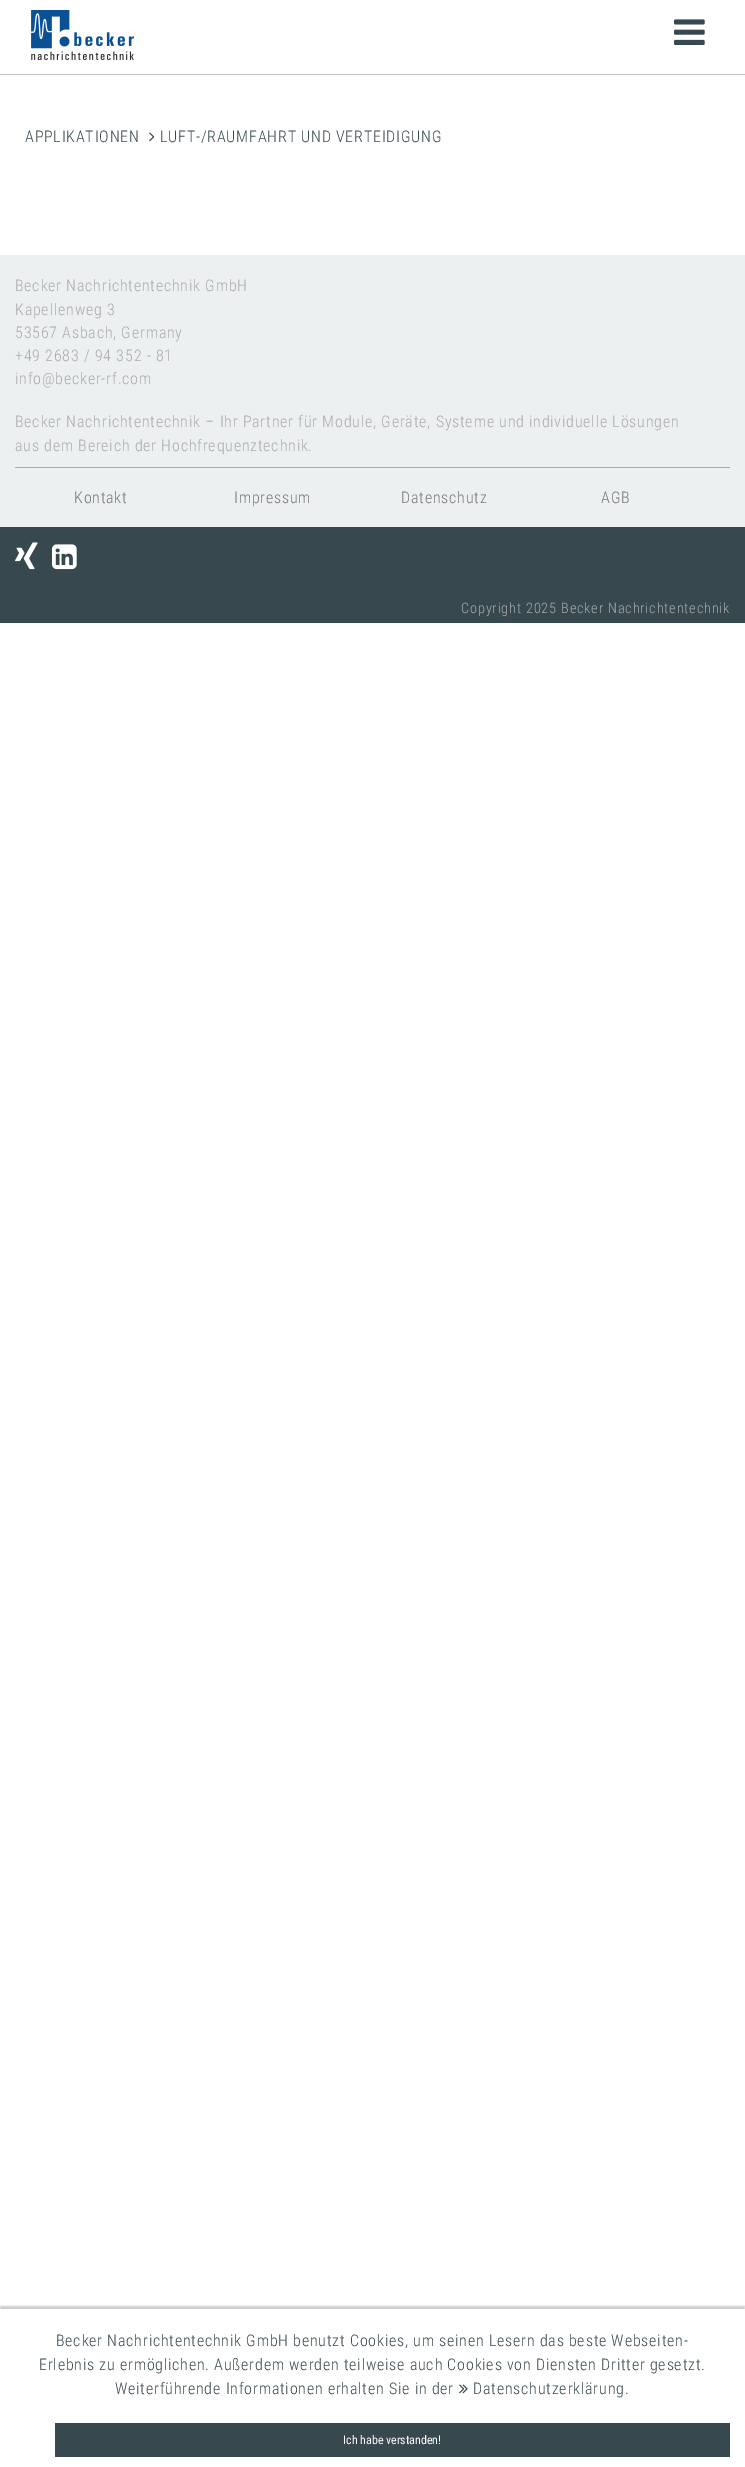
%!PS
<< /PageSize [745 2467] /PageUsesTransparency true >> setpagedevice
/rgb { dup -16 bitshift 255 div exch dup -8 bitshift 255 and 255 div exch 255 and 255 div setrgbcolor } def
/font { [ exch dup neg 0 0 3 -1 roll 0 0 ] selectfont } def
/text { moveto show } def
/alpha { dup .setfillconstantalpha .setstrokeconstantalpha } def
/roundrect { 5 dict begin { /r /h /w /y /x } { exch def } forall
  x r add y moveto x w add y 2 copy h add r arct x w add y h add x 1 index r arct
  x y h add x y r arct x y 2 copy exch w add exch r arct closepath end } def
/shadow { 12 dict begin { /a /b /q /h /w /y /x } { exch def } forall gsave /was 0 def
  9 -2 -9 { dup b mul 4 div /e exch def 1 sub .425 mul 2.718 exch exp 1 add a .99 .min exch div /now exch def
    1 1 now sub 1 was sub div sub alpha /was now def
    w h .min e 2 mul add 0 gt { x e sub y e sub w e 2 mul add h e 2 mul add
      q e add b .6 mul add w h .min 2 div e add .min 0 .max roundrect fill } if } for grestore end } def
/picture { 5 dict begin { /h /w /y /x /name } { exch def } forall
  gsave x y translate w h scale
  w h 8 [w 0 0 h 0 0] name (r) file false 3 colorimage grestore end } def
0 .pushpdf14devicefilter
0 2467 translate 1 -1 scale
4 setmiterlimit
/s1 { /RobotoCondensed-Regular 12 font 16#FFFFFF rgb } def
16#FFFFFF rgb
0 0 745 2467 rectfill
16#C4C4C4 rgb
0 74 745 1 rectfill
(pic1.raw) 31 10 103 50 picture
(pic2.raw) 674 19 31 26 picture
/RobotoCondensed-Light 16 font
16#37484F rgb
25 142 moveto 0.8 0 (APPLIKATIONEN) ashow
(pic3.raw) 149 132 6 10 picture
160 142 moveto 0.8 0 (LUFT-/RAUMFAHRT UND VERTEIDIGUNG) ashow
16#ECF0F1 rgb
0 255 745 272 rectfill
16#AAAAAA rgb
15 291 moveto 0.8 0 (Becker Nachrichtentechnik GmbH) ashow
15 315 moveto 0.8 0 (Kapellenweg 3) ashow
15 338 moveto 0.8 0 (53567 Asbach, Germany) ashow
15 361 moveto 0.8 0 (+49 2683 / 94 352 - 81) ashow
15 384 moveto 0.8 0 (info@becker-rf.com) ashow
15 427 moveto 0.8 0 (Becker Nachrichtentechnik – Ihr Partner für Module, Geräte, Systeme und individuelle Lösungen) ashow
15 451 moveto 0.8 0 (aus dem Bereich der Hochfrequenztechnik.) ashow
15 467 715 1 rectfill
16#777777 rgb
74 503 moveto 0.8 0 (Kontakt) ashow
234 503 moveto 0.8 0 (Impressum) ashow
401 503 moveto 0.8 0 (Datenschutz) ashow
601 503 moveto 0.8 0 (AGB) ashow
16#37484F rgb
0 527 745 96 rectfill
(pic4.raw) 15 542 23 28 picture
(pic5.raw) 52 544 25 26 picture
/RobotoCondensed-Light 14.4 font
16#AAAAAA rgb
461 613 moveto 0.8 0 (Copyright 2025 Becker Nachrichtentechnik) ashow
gsave
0 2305 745 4 rectclip
16#000000 rgb
0 2306 745 158 0 1 0.2 shadow
grestore
/RobotoCondensed-Light 16 font
16#37484F rgb
56 2346 moveto 0.8 0 (Becker Nachrichtentechnik GmbH benutzt Cookies, um seinen Lesern das beste Webseiten-) ashow
39 2370 moveto 0.8 0 (Erlebnis zu ermöglichen. Außerdem werden teilweise auch Cookies von Diensten Dritter gesetzt.) ashow
115 2394 moveto 0.8 0 (Weiterführende Informationen erhalten Sie in der) ashow
(pic6.raw) 459 2384 9 10 picture
473 2394 moveto 0.8 0 (Datenschutzerklärung.) ashow
55 2423 675 34 rectfill
s1
(Ich habe verstanden!) 343 2444 text
.poppdf14devicefilter showpage
